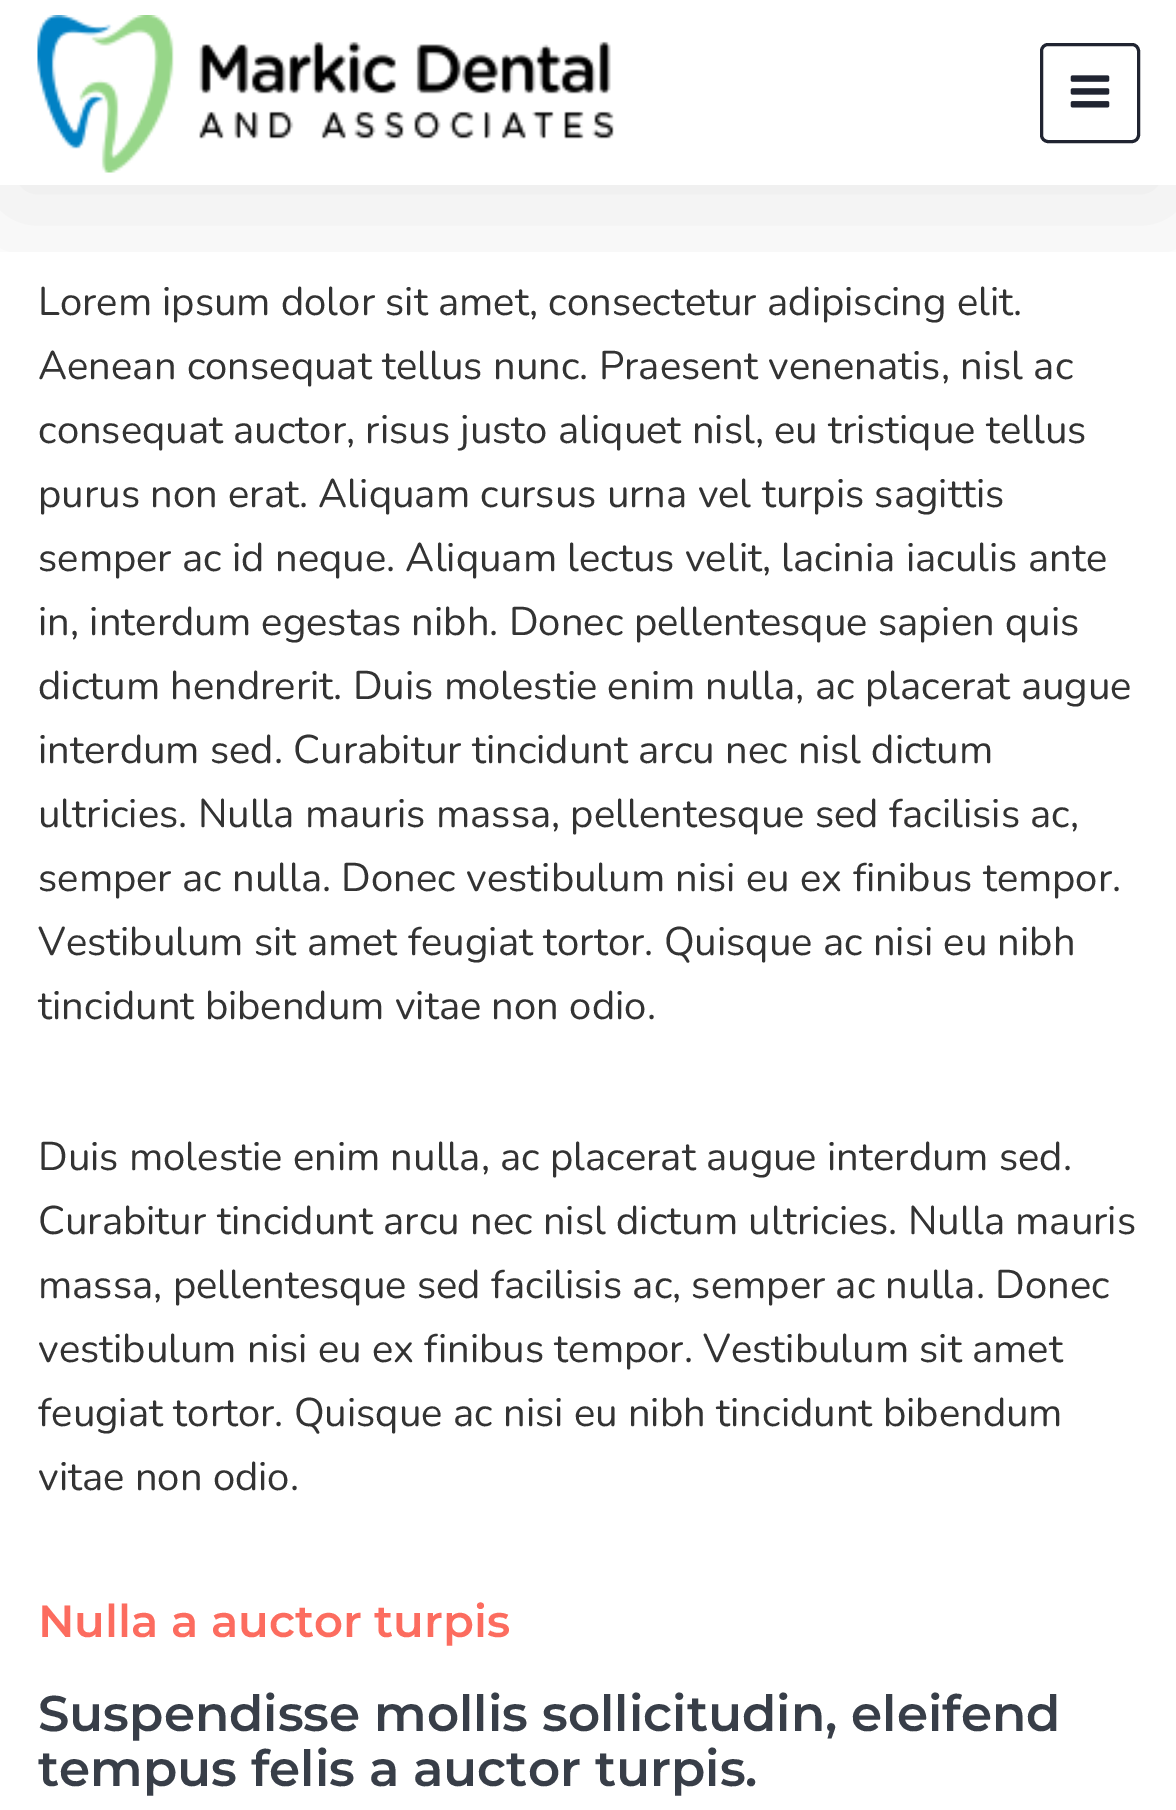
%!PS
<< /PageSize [1176 1810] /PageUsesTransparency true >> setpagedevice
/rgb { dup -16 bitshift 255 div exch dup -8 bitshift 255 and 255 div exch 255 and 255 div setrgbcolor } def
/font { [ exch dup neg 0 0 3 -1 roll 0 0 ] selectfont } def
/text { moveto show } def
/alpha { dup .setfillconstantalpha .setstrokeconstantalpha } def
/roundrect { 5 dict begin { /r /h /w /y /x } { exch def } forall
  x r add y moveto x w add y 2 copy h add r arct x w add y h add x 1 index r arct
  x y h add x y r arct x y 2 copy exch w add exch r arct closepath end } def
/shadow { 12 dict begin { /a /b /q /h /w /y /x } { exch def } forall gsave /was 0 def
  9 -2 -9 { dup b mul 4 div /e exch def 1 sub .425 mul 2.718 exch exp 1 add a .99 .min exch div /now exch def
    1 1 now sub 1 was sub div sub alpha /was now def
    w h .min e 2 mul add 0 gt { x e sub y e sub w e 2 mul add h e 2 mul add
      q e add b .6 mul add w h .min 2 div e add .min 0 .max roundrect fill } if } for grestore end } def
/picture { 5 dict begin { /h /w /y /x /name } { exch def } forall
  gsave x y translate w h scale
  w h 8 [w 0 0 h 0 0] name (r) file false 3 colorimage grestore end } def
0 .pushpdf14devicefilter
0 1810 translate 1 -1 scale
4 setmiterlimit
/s1 { /Nunito-Regular 40 font 16#333333 rgb } def
/s2 { /Montserrat-SemiBold 45 font 16#FC6C5F rgb } def
/s3 { /Montserrat-SemiBold 50 font 16#383E48 rgb } def
16#FFFFFF rgb
0 0 1176 1810 rectfill
gsave
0 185 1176 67 rectclip
16#000000 rgb
0 25 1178 185 0 62.5 0.08 shadow
grestore
(pic1.raw) 37 15 577 158 picture
16#202431 rgb
3 setlinewidth
1041.5 44.5 97 97 6.5 roundrect stroke
(pic2.raw) 1070 75 40 33 picture
s1
(Lorem ipsum dolor sit amet, consectetur adipiscing elit.) 38 315 text
(Aenean consequat tellus nunc. Praesent venenatis, nisl ac) 38 379 text
(consequat auctor, risus justo aliquet nisl, eu tristique tellus) 38 443 text
(purus non erat. Aliquam cursus urna vel turpis sagittis) 38 507 text
(semper ac id neque. Aliquam lectus velit, lacinia iaculis ante) 38 571 text
(in, interdum egestas nibh. Donec pellentesque sapien quis) 38 635 text
(dictum hendrerit. Duis molestie enim nulla, ac placerat augue) 38 699 text
(interdum sed. Curabitur tincidunt arcu nec nisl dictum) 38 763 text
(ultricies. Nulla mauris massa, pellentesque sed facilisis ac,) 38 827 text
(semper ac nulla. Donec vestibulum nisi eu ex finibus tempor.) 38 891 text
(Vestibulum sit amet feugiat tortor. Quisque ac nisi eu nibh) 38 955 text
(tincidunt bibendum vitae non odio.) 38 1019 text
(Duis molestie enim nulla, ac placerat augue interdum sed.) 38 1170 text
(Curabitur tincidunt arcu nec nisl dictum ultricies. Nulla mauris) 38 1234 text
(massa, pellentesque sed facilisis ac, semper ac nulla. Donec) 38 1298 text
(vestibulum nisi eu ex finibus tempor. Vestibulum sit amet) 38 1362 text
(feugiat tortor. Quisque ac nisi eu nibh tincidunt bibendum) 38 1426 text
(vitae non odio.) 38 1490 text
s2
(Nulla a auctor turpis) 38 1637 text
s3
(Suspendisse mollis sollicitudin, eleifend) 38 1731 text
(tempus felis a auctor turpis.) 38 1786 text
.poppdf14devicefilter showpage
